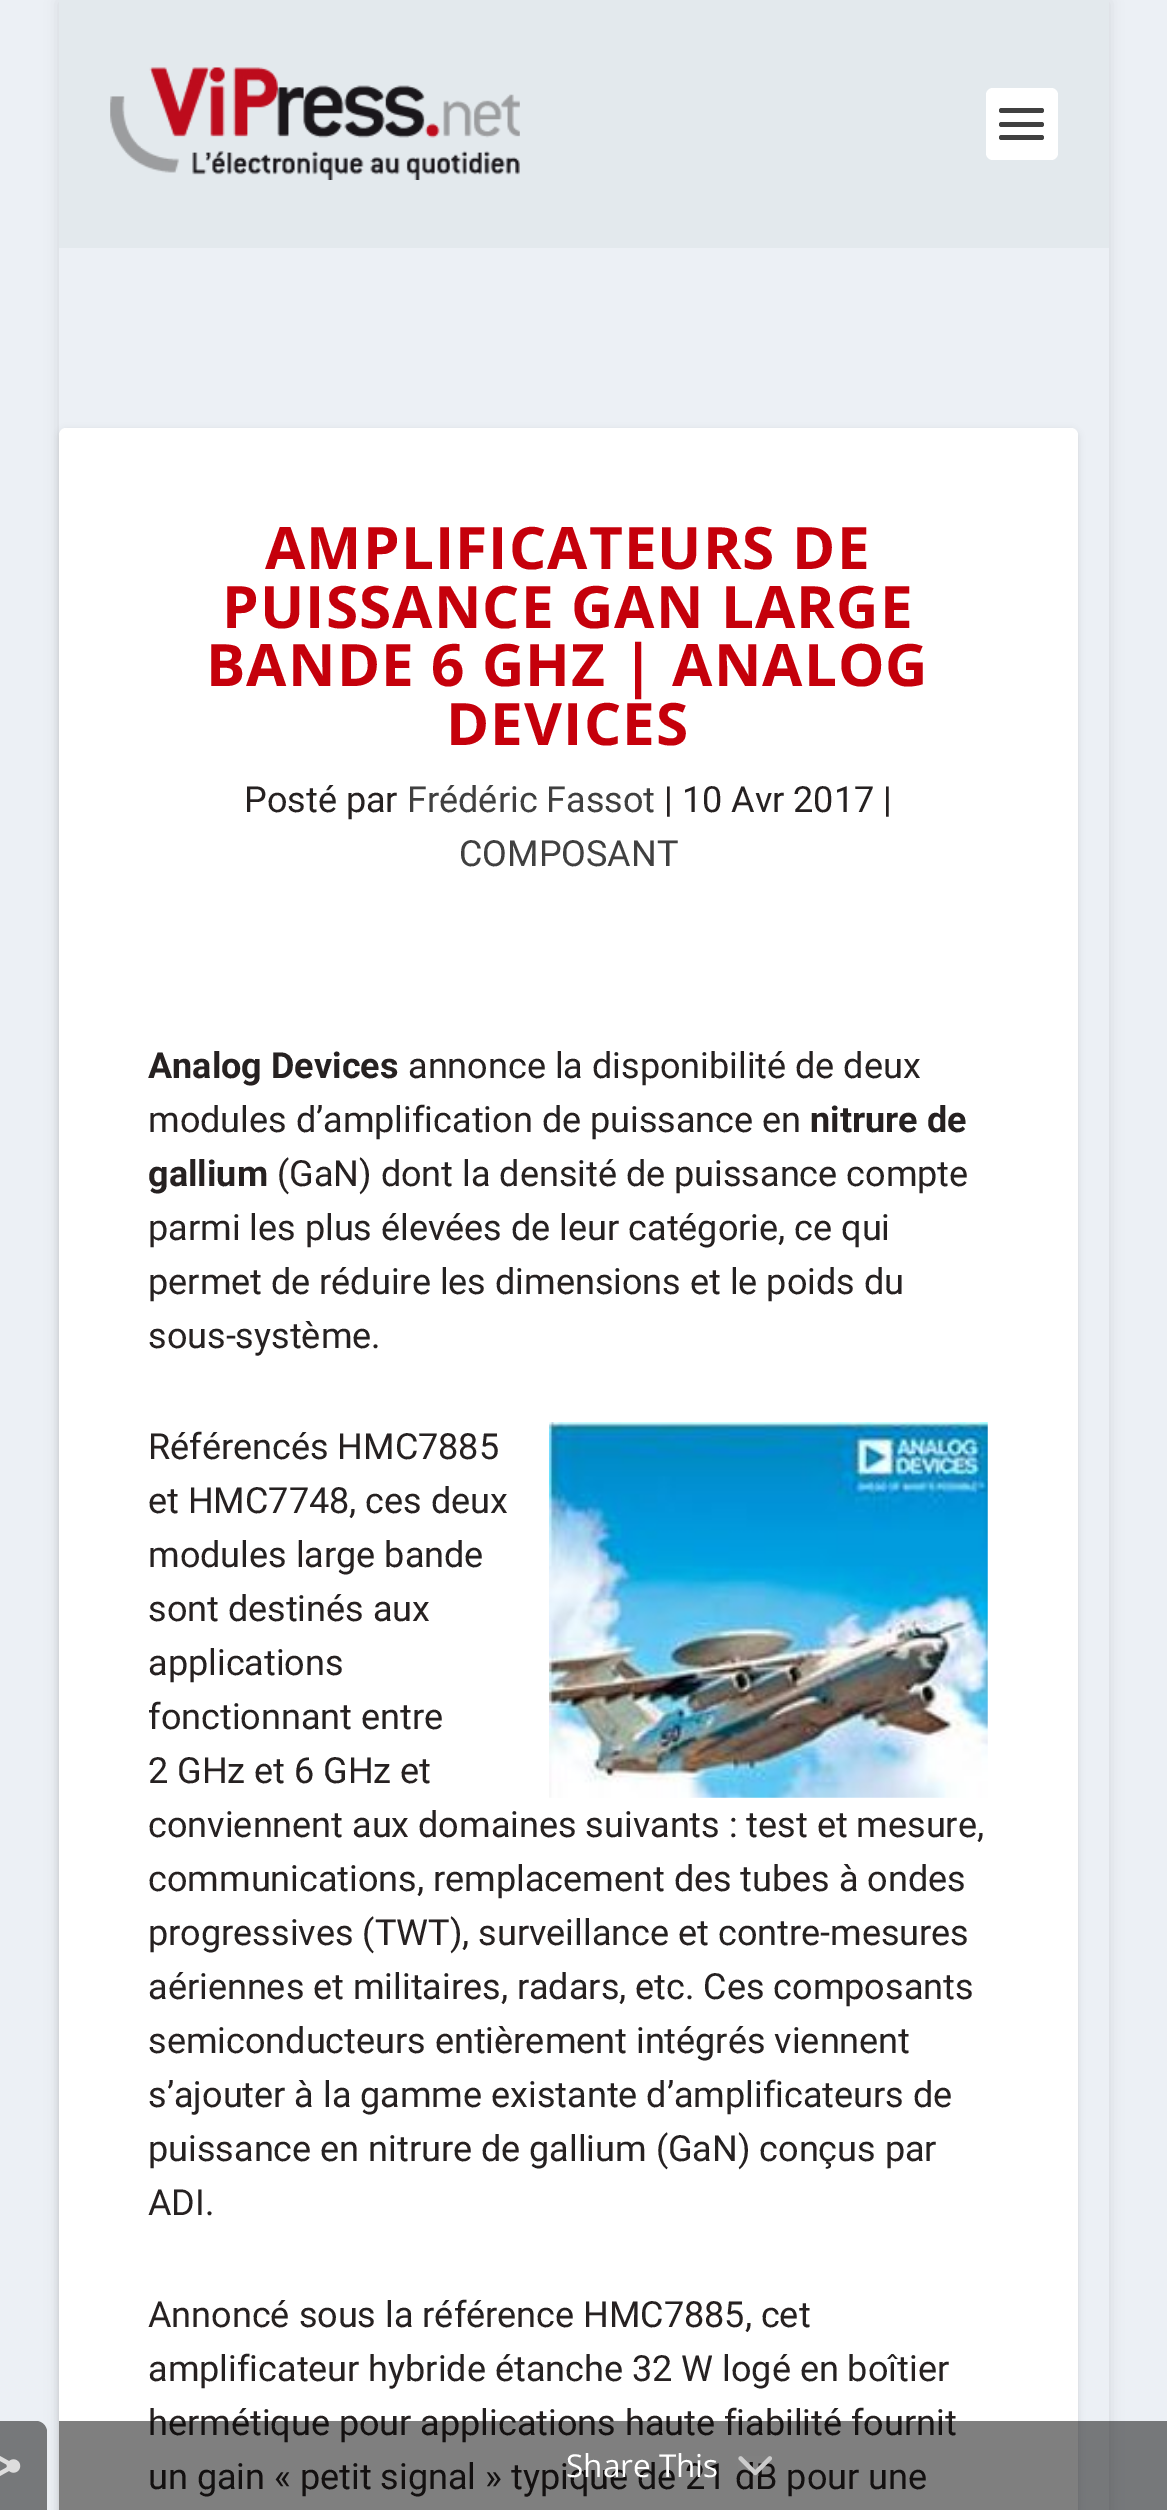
%!PS
<< /PageSize [1167 2510] /PageUsesTransparency true >> setpagedevice
/rgb { dup -16 bitshift 255 div exch dup -8 bitshift 255 and 255 div exch 255 and 255 div setrgbcolor } def
/font { [ exch dup neg 0 0 3 -1 roll 0 0 ] selectfont } def
/text { moveto show } def
/alpha { dup .setfillconstantalpha .setstrokeconstantalpha } def
/roundrect { 5 dict begin { /r /h /w /y /x } { exch def } forall
  x r add y moveto x w add y 2 copy h add r arct x w add y h add x 1 index r arct
  x y h add x y r arct x y 2 copy exch w add exch r arct closepath end } def
/shadow { 12 dict begin { /a /b /q /h /w /y /x } { exch def } forall gsave /was 0 def
  9 -2 -9 { dup b mul 4 div /e exch def 1 sub .425 mul 2.718 exch exp 1 add a .99 .min exch div /now exch def
    1 1 now sub 1 was sub div sub alpha /was now def
    w h .min e 2 mul add 0 gt { x e sub y e sub w e 2 mul add h e 2 mul add
      q e add b .6 mul add w h .min 2 div e add .min 0 .max roundrect fill } if } for grestore end } def
/picture { 5 dict begin { /h /w /y /x /name } { exch def } forall
  gsave x y translate w h scale
  w h 8 [w 0 0 h 0 0] name (r) file false 3 colorimage grestore end } def
0 .pushpdf14devicefilter
0 2510 translate 1 -1 scale
4 setmiterlimit
/s1 { /Roboto-Regular 36 font 16#262121 rgb } def
/s2 { /Roboto-Regular 36 font 16#404040 rgb } def
/s3 { /Roboto-Bold 36 font 16#262121 rgb } def
/s4 { /OpenSans-Regular 31.5 font 16#FFFFFF rgb } def
16#ECF0F5 rgb
0 0 1167 2510 rectfill
gsave
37 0 moveto 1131 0 lineto 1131 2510 lineto 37 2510 lineto closepath 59 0 moveto 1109 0 lineto 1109 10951 lineto 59 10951 lineto closepath eoclip newpath
16#000000 rgb
59 2 1050 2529 0 7 0.1 shadow
grestore
16#76787A rgb
-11 2421 moveto 36 2421 lineto 42 2421 47 2426 47 2432 curveto 47 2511 lineto -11 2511 lineto closepath fill
(pic1.raw) 0 2456 21 20 picture
16#E3E9ED rgb
59 0 1050 248 rectfill
(pic2.raw) 110 67 410 113 picture
16#FFFFFF rgb
986 88 72 72 7 roundrect fill
16#404040 rgb
999 108 45 5 2.5 roundrect fill
999 122 45 5 2.5 roundrect fill
999 135 45 5 2.5 roundrect fill
16#000000 rgb
59 430 1019 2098 7 3.5 0.1 shadow
16#FFFFFF rgb
59 428 1019 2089 7 roundrect fill
/OpenSans-Bold 58.5 font
16#C5000B rgb
265 569 moveto 1.1 0 (AMPLIFICATEURS DE) ashow
222 628 moveto 1.1 0 (PUISSANCE GAN LARGE) ashow
206 686 moveto 1.1 0 (BANDE 6 GHZ | ANALOG) ashow
446 745 moveto 1.1 0 (DEVICES) ashow
s1
(Posté par) 244 812 text
s2
(Frédéric Fassot) 407 812 text
s1
(| 10 Avr 2017 |) 664 812 text
s2
(COMPOSANT) 459 866 text
s3
(Analog Devices) 148 1078 text
s1
(annonce la disponibilité de deux) 408 1078 text
(modules d’amplification de puissance en) 148 1132 text
s3
(nitrure de) 810 1132 text
(gallium) 148 1186 text
s1
(\(GaN\) dont la densité de puissance compte) 277 1186 text
(parmi les plus élevées de leur catégorie, ce qui) 148 1240 text
(permet de réduire les dimensions et le poids du) 148 1294 text
(sous-système.) 148 1348 text
(Référencés HMC7885) 148 1459 text
(pic3.raw) 549 1422 439 376 picture
(et HMC7748, ces deux) 148 1513 text
(modules large bande) 148 1567 text
(sont destinés aux) 148 1621 text
(applications) 148 1675 text
(fonctionnant entre) 148 1729 text
(2 GHz et 6 GHz et) 148 1783 text
(conviennent aux domaines suivants : test et mesure,) 148 1837 text
(communications, remplacement des tubes à ondes) 148 1891 text
(progressives \(TWT\), surveillance et contre-mesures) 148 1945 text
(aériennes et militaires, radars, etc. Ces composants) 148 1999 text
(semiconducteurs entièrement intégrés viennent) 148 2053 text
(s’ajouter à la gamme existante d’amplificateurs de) 148 2107 text
(puissance en nitrure de gallium \(GaN\) conçus par) 148 2161 text
(ADI.) 148 2215 text
(Annoncé sous la référence HMC7885, cet) 148 2327 text
(amplificateur hybride étanche 32 W logé en boîtier) 148 2381 text
(hermétique pour applications haute fiabilité fournit) 148 2435 text
(un gain « petit signal » typique de 21 dB pour une) 148 2489 text
0.5 alpha
16#000000 rgb
59 2421 1108 89 rectfill
1 alpha
s4
(Share This) 566 2477 text
(pic4.raw) 738 2456 34 20 picture
.poppdf14devicefilter showpage
